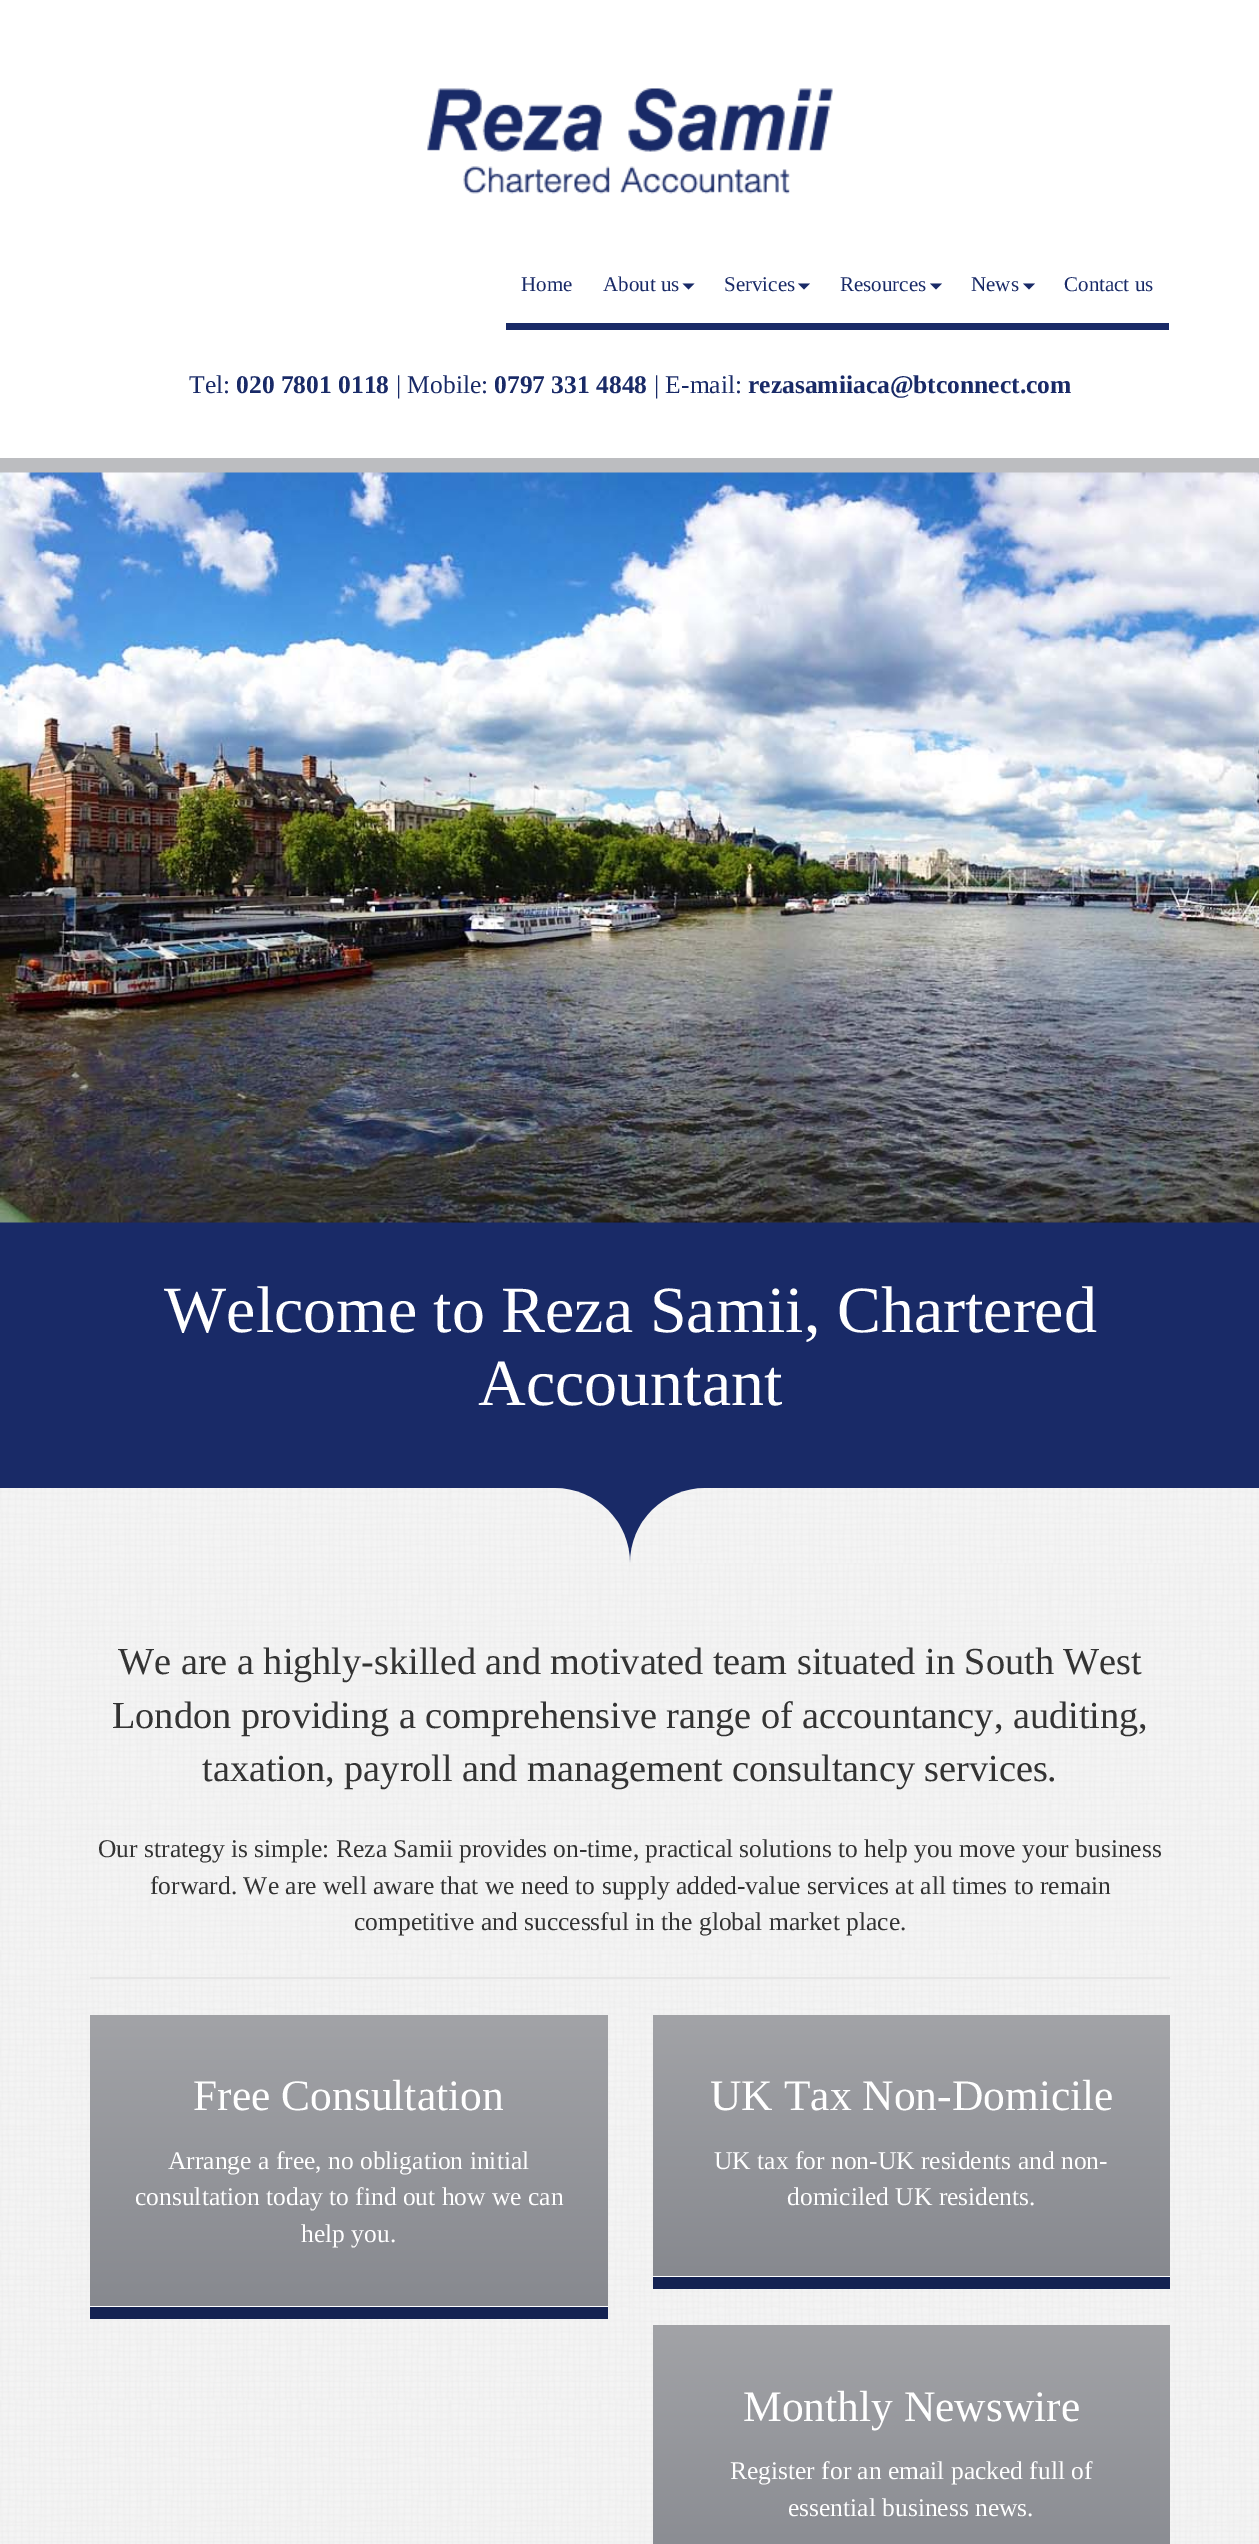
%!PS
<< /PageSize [1259 2544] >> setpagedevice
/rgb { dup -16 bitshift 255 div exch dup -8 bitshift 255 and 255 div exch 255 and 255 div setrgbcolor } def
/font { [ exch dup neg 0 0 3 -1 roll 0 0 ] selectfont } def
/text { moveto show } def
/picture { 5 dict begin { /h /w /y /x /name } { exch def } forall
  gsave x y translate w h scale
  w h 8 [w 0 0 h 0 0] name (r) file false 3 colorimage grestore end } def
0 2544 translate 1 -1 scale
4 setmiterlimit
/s1 { /LiberationSerif-Regular 21 font 16#192A67 rgb } def
/s2 { /LiberationSerif-Regular 25.5 font 16#192A67 rgb } def
/s3 { /LiberationSerif-Bold 25.5 font 16#192A67 rgb } def
/s4 { /LiberationSerif-Regular 66 font 16#FFFFFF rgb } def
/s5 { /LiberationSerif-Regular 38.25 font 16#333333 rgb } def
/s6 { /LiberationSerif-Regular 25.5 font 16#333333 rgb } def
/s7 { /LiberationSerif-Regular 43.5 font 16#FFFFFF rgb } def
/s8 { /LiberationSerif-Regular 25.5 font 16#FFFFFF rgb } def
16#FFFFFF rgb
0 0 1259 2544 rectfill
(pic1.raw) 0 1563 1259 981 picture
16#BCBDC0 rgb
0 458 1259 15 rectfill
(pic2.raw) 427 88 406 106 picture
16#192A67 rgb
506 323 663 7 rectfill
s1
(Home) 521 291 text
(About us) 603 291 text
682.5 283.5 moveto 694.5 283.5 lineto 688.5 289.5 lineto closepath fill
(Services) 724 291 text
798 283.5 moveto 810 283.5 lineto 804 289.5 lineto closepath fill
(Resources) 840 291 text
930 283.5 moveto 942 283.5 lineto 936 289.5 lineto closepath fill
(News) 971 291 text
1023 283.5 moveto 1035 283.5 lineto 1029 289.5 lineto closepath fill
(Contact us) 1064 291 text
s2
(Tel:) 189 393 text
s3
(020 7801 0118) 236 393 text
s2
(| Mobile:) 396 393 text
s3
(0797 331 4848) 494 393 text
s2
(| E-mail:) 654 393 text
s3
(rezasamiiaca@btconnect.com) 748 393 text
0 1222 1259 341 rectfill
(pic3.raw) 0 472 1259 751 picture
s4
(Welcome to Reza Samii, Chartered) 164 1332 text
(Accountant) 478 1405 text
(pic4.raw) 0 1488 630 75 picture
(pic5.raw) 630 1488 629 75 picture
s5
(We are a highly-skilled and motivated team situated in South West) 118 1674 text
(London providing a comprehensive range of accountancy, auditing,) 112 1728 text
(taxation, payroll and management consultancy services.) 202 1781 text
s6
(Our strategy is simple: Reza Samii provides on-time, practical solutions to help you move your business) 98 1857 text
(forward. We are well aware that we need to supply added-value services at all times to remain) 150 1894 text
(competitive and successful in the global market place.) 354 1930 text
16#E6E6E6 rgb
90 1977 1080 2 rectfill
gsave 90 2015 moveto 608 2015 lineto 608 2306 lineto 90 2306 lineto closepath clip newpath
<< /ShadingType 2 /ColorSpace /DeviceRGB /Coords [349 2015 349 2307] /Extend [true true] /Function << /FunctionType 2 /Domain [0 1] /C0 [0.635 0.639 0.655] /C1 [0.529 0.537 0.561] /N 1 >> >> shfill grestore
16#FFFFFF rgb
90 2306 518 1 rectfill
16#142252 rgb
90 2307 518 12 rectfill
s7
(Free Consultation) 193 2110 text
s8
(Arrange a free, no obligation initial) 168 2169 text
(consultation today to find out how we can) 135 2205 text
(help you.) 301 2242 text
gsave 653 2015 moveto 1170 2015 lineto 1170 2276 lineto 653 2276 lineto closepath clip newpath
<< /ShadingType 2 /ColorSpace /DeviceRGB /Coords [911 2015 911 2277] /Extend [true true] /Function << /FunctionType 2 /Domain [0 1] /C0 [0.635 0.639 0.655] /C1 [0.529 0.537 0.561] /N 1 >> >> shfill grestore
653 2276 517 1 rectfill
16#142252 rgb
653 2277 517 12 rectfill
s7
(UK Tax Non-Domicile) 710 2110 text
s8
(UK tax for non-UK residents and non-) 714 2169 text
(domiciled UK residents.) 787 2205 text
gsave 653 2325 moveto 1170 2325 lineto 1170 2544 lineto 653 2544 lineto closepath clip newpath
<< /ShadingType 2 /ColorSpace /DeviceRGB /Coords [911 2325 911 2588] /Extend [true true] /Function << /FunctionType 2 /Domain [0 1] /C0 [0.635 0.639 0.655] /C1 [0.529 0.537 0.561] /N 1 >> >> shfill grestore
s7
(Monthly Newswire) 743 2421 text
s8
(Register for an email packed full of) 730 2479 text
(essential business news.) 788 2516 text
showpage
